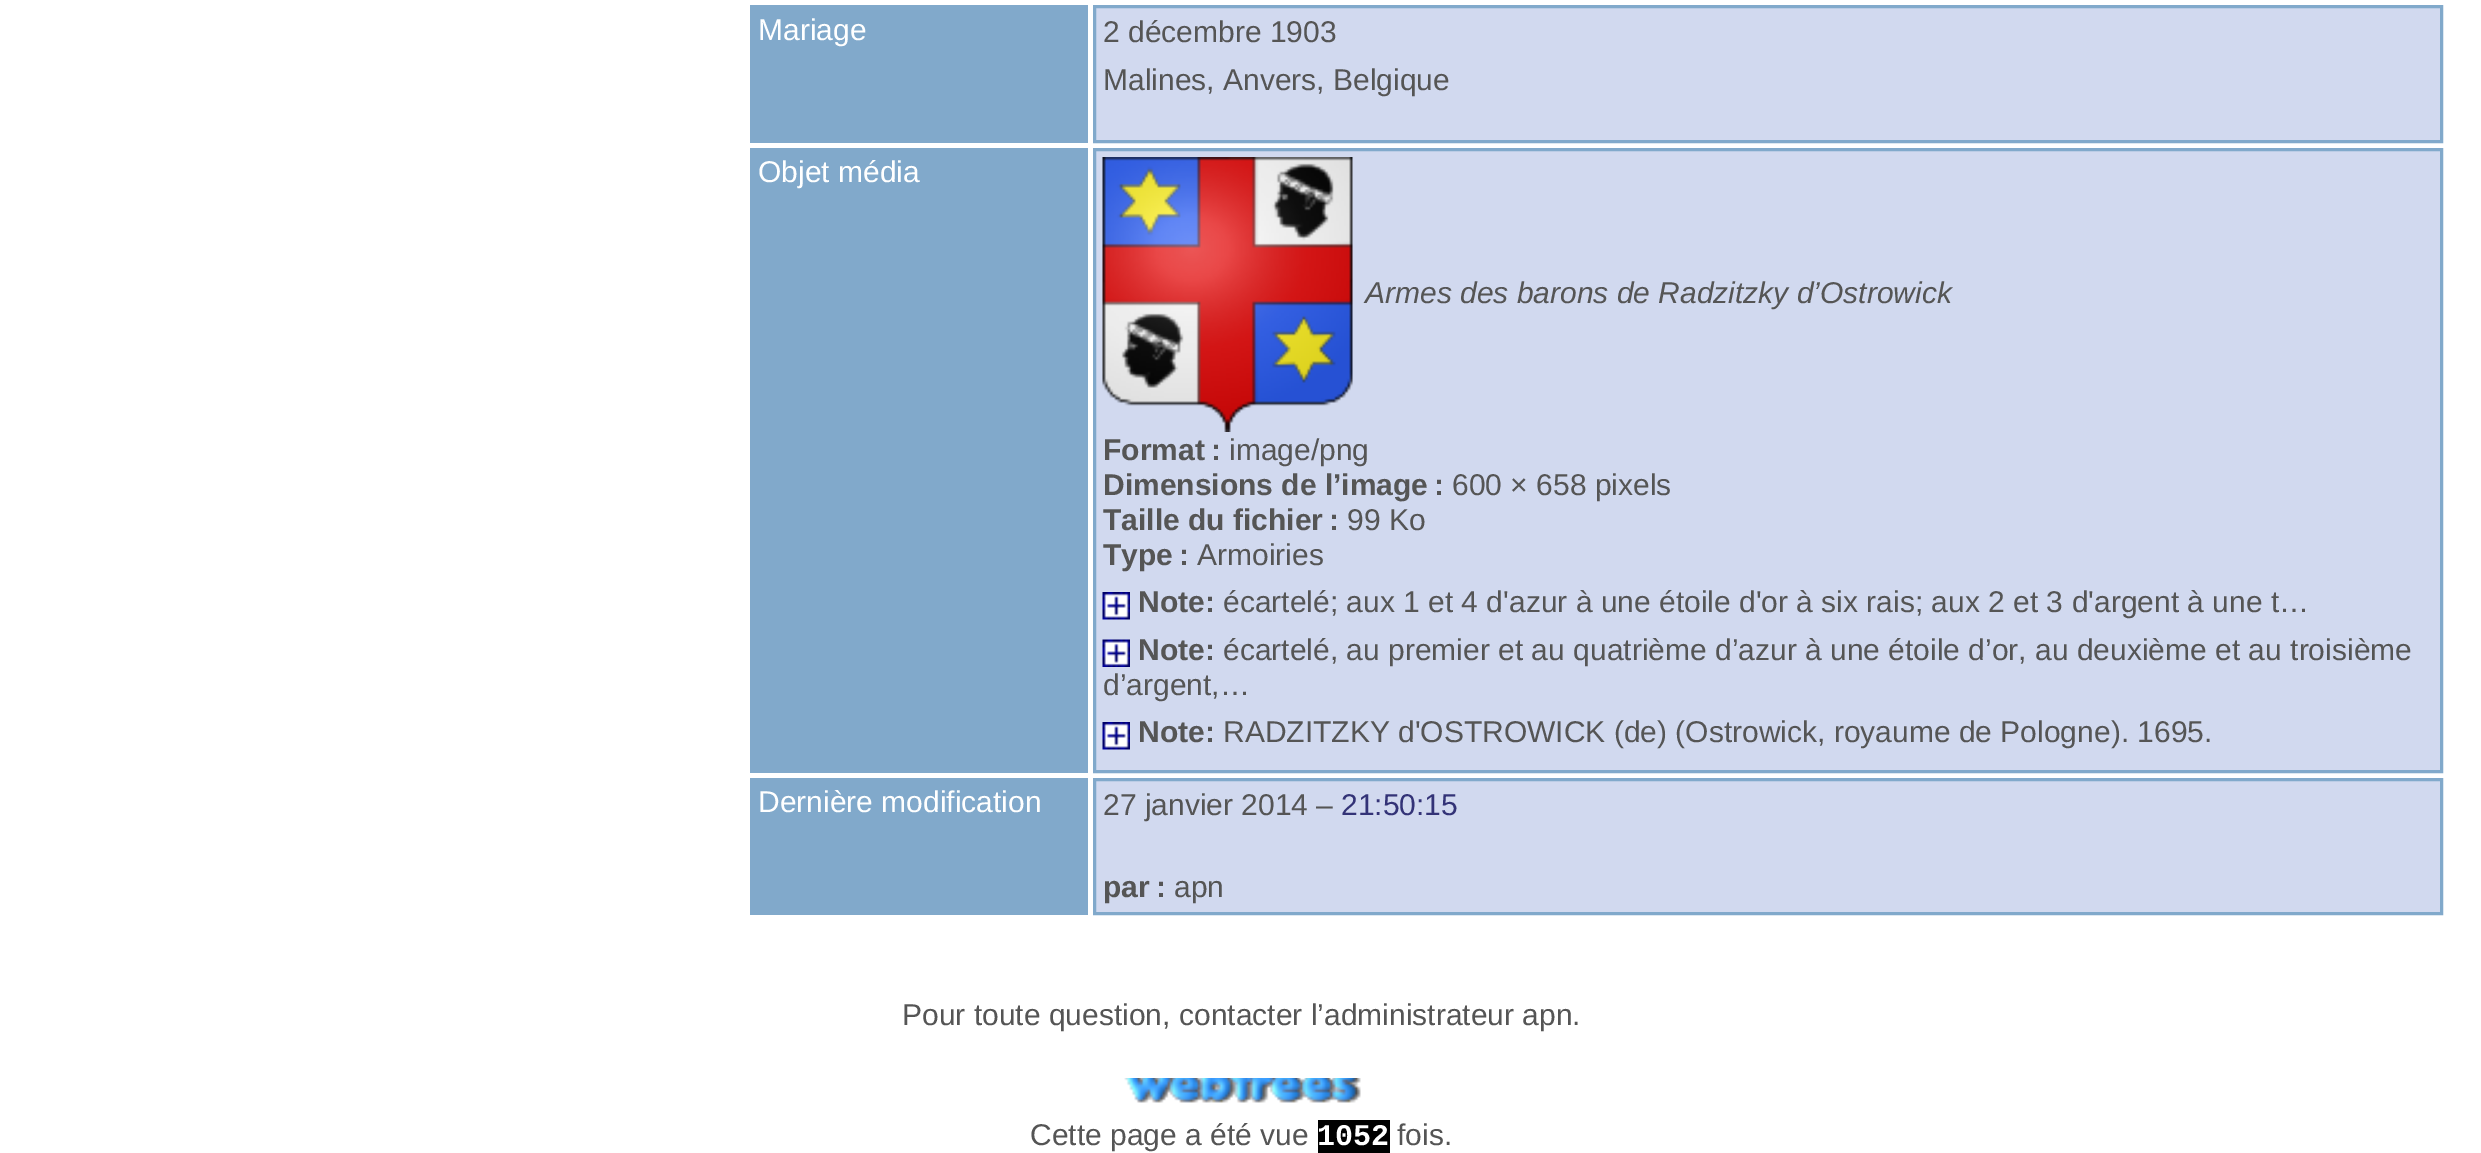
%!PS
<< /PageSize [2481 1153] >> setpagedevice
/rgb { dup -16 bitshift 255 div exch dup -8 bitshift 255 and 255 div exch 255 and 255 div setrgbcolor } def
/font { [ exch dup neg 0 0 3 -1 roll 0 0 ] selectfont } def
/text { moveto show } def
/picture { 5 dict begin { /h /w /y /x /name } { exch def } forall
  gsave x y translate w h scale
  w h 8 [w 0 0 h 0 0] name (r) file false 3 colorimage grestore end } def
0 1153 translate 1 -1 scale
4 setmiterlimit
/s1 { /LiberationSans-Regular 30 font 16#FFFFFF rgb } def
/s2 { /LiberationSans-Regular 30 font 16#555555 rgb } def
/s3 { /LiberationSans-Italic 30 font 16#555555 rgb } def
/s4 { /LiberationSans-Bold 30 font 16#555555 rgb } def
/s5 { /LiberationSans-Regular 30 font 16#333377 rgb } def
/s6 { /LiberationMono-Bold 30 font 16#FFFFFF rgb } def
16#FFFFFF rgb
0 0 2481 1153 rectfill
16#81A9CB rgb
750 5 338 138 rectfill
s1
(Mariage) 758 40 text
16#D1D9EF rgb
1094.5 6.5 moveto 2441.5 6.5 lineto 2441.5 141.5 lineto 1094.5 141.5 lineto closepath gsave fill grestore
16#81A9CB rgb
3 setlinewidth
stroke
s2
(2 décembre 1903) 1103 42 text
(Malines, Anvers, Belgique) 1103 90 text
16#81A9CB rgb
750 148 338 625 rectfill
s1
(Objet média) 758 182 text
16#D1D9EF rgb
1094.5 149.5 moveto 2441.5 149.5 lineto 2441.5 771.5 lineto 1094.5 771.5 lineto closepath gsave fill grestore
16#81A9CB rgb
stroke
(pic1.raw) 1102 157 251 275 picture
s3
(Armes des barons de Radzitzky d’Ostrowick) 1365 303 text
s4
(Format :) 1103 460 text
s2
(image/png) 1229 460 text
s4
(Dimensions de l’image :) 1103 495 text
s2
(600 × 658 pixels) 1452 495 text
s4
(Taille du fichier :) 1103 530 text
s2
(99 Ko) 1347 530 text
s4
(Type :) 1103 565 text
s2
(Armoiries) 1197 565 text
(pic2.raw) 1102 592 28 28 picture
s4
(Note:) 1138 612 text
s2
(écartelé; aux 1 et 4 d'azur à une étoile d'or à six rais; aux 2 et 3 d'argent à une t…) 1223 612 text
(pic3.raw) 1102 639 28 28 picture
s4
(Note:) 1138 660 text
s2
(écartelé, au premier et au quatrième d’azur à une étoile d’or, au deuxième et au troisième) 1223 660 text
(d’argent,…) 1103 695 text
(pic2.raw) 1102 722 28 28 picture
s4
(Note:) 1138 742 text
s2
(RADZITZKY d'OSTROWICK \(de\) \(Ostrowick, royaume de Pologne\). 1695.) 1223 742 text
16#81A9CB rgb
750 778 338 137 rectfill
s1
(Dernière modification) 758 812 text
16#D1D9EF rgb
1094.5 779.5 moveto 2441.5 779.5 lineto 2441.5 913.5 lineto 1094.5 913.5 lineto closepath gsave fill grestore
16#81A9CB rgb
stroke
s2
(27 janvier 2014 –) 1103 815 text
s5
(21:50:15) 1341 815 text
s4
(par :) 1103 897 text
s2
(apn) 1174 897 text
(Pour toute question, contacter l’administrateur apn.) 902 1025 text
(pic4.raw) 1124 1078 237 25 picture
(Cette page a été vue) 1030 1145 text
16#000000 rgb
1318 1120 72 33 rectfill
s6
(1052) 1317 1145 text
s2
(fois.) 1397 1145 text
showpage
